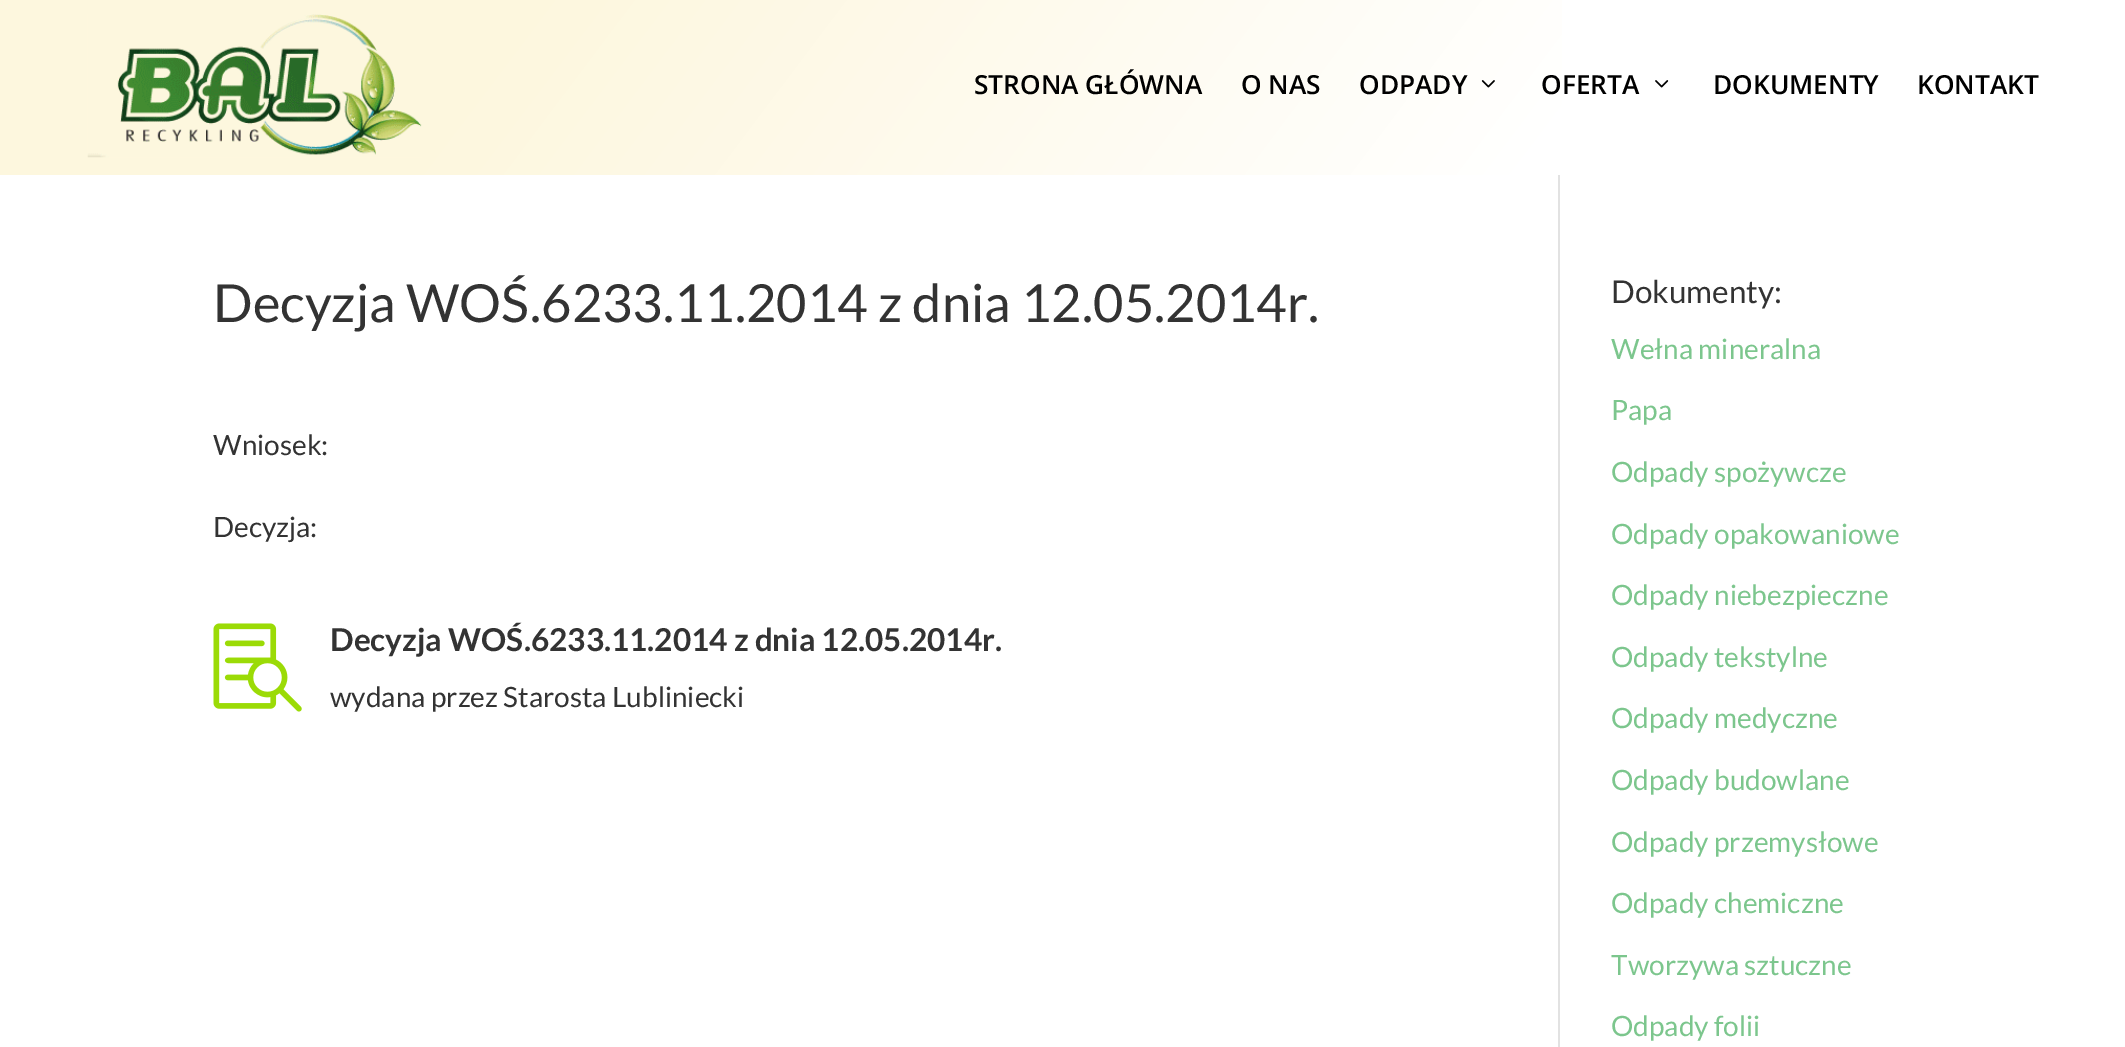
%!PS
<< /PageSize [2125 1047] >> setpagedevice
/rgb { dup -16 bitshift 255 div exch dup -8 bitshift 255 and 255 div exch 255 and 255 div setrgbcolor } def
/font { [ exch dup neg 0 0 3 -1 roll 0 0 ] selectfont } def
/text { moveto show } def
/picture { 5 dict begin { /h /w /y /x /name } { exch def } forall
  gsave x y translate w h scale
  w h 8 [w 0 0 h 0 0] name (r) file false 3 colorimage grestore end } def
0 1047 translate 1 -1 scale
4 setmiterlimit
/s1 { /OpenSans-SemiBold 26.25 font 16#000000 rgb } def
/s2 { /Lato-Regular 52.5 font 16#333333 rgb } def
/s3 { /Lato-Regular 28 font 16#333333 rgb } def
/s4 { /Lato-Bold 31.5 font 16#333333 rgb } def
/s5 { /Lato-Regular 31.5 font 16#333333 rgb } def
/s6 { /Lato-Regular 28 font 16#7CC68D rgb } def
16#FFFFFF rgb
0 0 2125 1047 rectfill
16#E2E2E2 rgb
1558 173 2 874 rectfill
gsave 0 0 moveto 1562 0 lineto 1562 175 lineto 0 175 lineto closepath clip newpath
<< /ShadingType 2 /ColorSpace /DeviceRGB /Coords [341 -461 1785 627] /Extend [true true] /Function << /FunctionType 3 /Domain [0 1] /Functions [<< /FunctionType 2 /Domain [0 1] /C0 [0.992 0.969 0.871] /C1 [0.992 0.969 0.871] /N 1 >> << /FunctionType 2 /Domain [0 1] /C0 [0.992 0.969 0.871] /C1 [1 1 1] /N 1 >> << /FunctionType 2 /Domain [0 1] /C0 [1 1 1] /C1 [1 1 1] /N 1 >>] /Bounds [0.24 0.73] /Encode [0 1 0 1 0 1] >> >> shfill grestore
(pic1.raw) 87 14 335 144 picture
s1
(STRONA GŁÓWNA) 974 94 text
(O NAS) 1241 94 text
(ODPADY) 1359 94 text
(pic2.raw) 1481 80 14 8 picture
(OFERTA) 1541 94 text
(pic3.raw) 1655 80 14 8 picture
(DOKUMENTY) 1713 94 text
(KONTAKT) 1917 94 text
s2
(Decyzja WOŚ.6233.11.2014 z dnia 12.05.2014r.) 213 322 text
s3
(Wniosek:) 213 455 text
(Decyzja:) 213 537 text
(pic4.raw) 213 623 89 89 picture
s4
(Decyzja WOŚ.6233.11.2014 z dnia 12.05.2014r.) 330 651 text
s3
(wydana przez Starosta Lubliniecki) 330 707 text
s5
(Dokumenty:) 1611 303 text
s6
(Wełna mineralna) 1611 359 text
(Papa) 1611 420 text
(Odpady spożywcze) 1611 482 text
(Odpady opakowaniowe) 1611 544 text
(Odpady niebezpieczne) 1611 605 text
(Odpady tekstylne) 1611 667 text
(Odpady medyczne) 1611 728 text
(Odpady budowlane) 1611 790 text
(Odpady przemysłowe) 1611 852 text
(Odpady chemiczne) 1611 913 text
(Tworzywa sztuczne) 1611 975 text
(Odpady folii) 1611 1036 text
showpage
